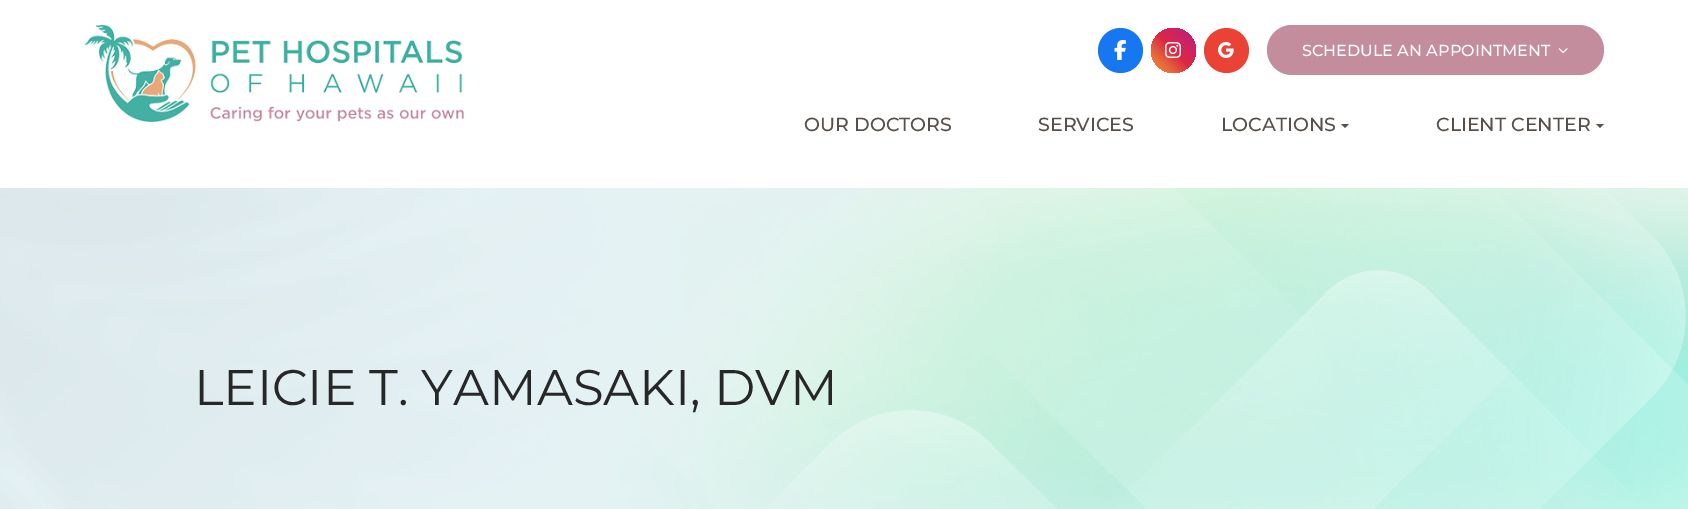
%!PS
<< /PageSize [1688 509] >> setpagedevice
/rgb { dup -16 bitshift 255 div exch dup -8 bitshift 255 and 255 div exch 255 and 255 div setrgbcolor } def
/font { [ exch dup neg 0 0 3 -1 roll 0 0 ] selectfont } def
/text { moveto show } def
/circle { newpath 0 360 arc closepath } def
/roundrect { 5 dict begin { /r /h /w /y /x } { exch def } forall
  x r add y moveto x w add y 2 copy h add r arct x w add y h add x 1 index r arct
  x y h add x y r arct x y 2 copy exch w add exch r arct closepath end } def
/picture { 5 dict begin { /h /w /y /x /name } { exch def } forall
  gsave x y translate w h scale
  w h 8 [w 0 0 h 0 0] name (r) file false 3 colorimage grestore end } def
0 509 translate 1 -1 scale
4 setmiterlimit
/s1 { /Montserrat-Medium 16 font 16#FFFFFF rgb } def
/s2 { /Montserrat-Medium 19 font 16#574F49 rgb } def
/s3 { /Montserrat-Regular 50 font 16#282728 rgb } def
16#FFFFFF rgb
0 0 1688 509 rectfill
(pic1.raw) 84 25 380 97 picture
16#1777F1 rgb
1120.5 50.5 22.5 circle fill
(pic2.raw) 1114 40 12 20 picture
gsave 1173.5 50.5 22.5 circle clip newpath
<< /ShadingType 2 /ColorSpace /DeviceRGB /Coords [1151 73 1196 28] /Extend [true true] /Function << /FunctionType 3 /Domain [0 1] /Functions [<< /FunctionType 2 /Domain [0 1] /C0 [0.941 0.58 0.2] /C1 [0.902 0.408 0.235] /N 1 >> << /FunctionType 2 /Domain [0 1] /C0 [0.902 0.408 0.235] /C1 [0.863 0.153 0.263] /N 1 >> << /FunctionType 2 /Domain [0 1] /C0 [0.863 0.153 0.263] /C1 [0.8 0.137 0.4] /N 1 >> << /FunctionType 2 /Domain [0 1] /C0 [0.8 0.137 0.4] /C1 [0.737 0.094 0.533] /N 1 >>] /Bounds [0.25 0.5 0.75] /Encode [0 1 0 1 0 1 0 1] >> >> shfill grestore
(pic3.raw) 1165 42 16 16 picture
16#EA4335 rgb
1226.5 50.5 22.5 circle fill
(pic4.raw) 1218 42 16 16 picture
16#C38D9D rgb
1267 25 337 50 25 roundrect fill
s1
(SCHEDULE AN APPOINTMENT) 1302 56 text
(pic5.raw) 1558 48 10 6 picture
s2
(OUR DOCTORS) 804 131 text
(SERVICES) 1038 131 text
(LOCATIONS) 1221 131 text
1341 124 moveto 1349 124 lineto 1345 128 lineto closepath fill
(CLIENT CENTER) 1436 131 text
1596 124 moveto 1604 124 lineto 1600 128 lineto closepath fill
(pic6.raw) 0 188 1688 321 picture
s3
(LEICIE T. YAMASAKI, DVM) 194 405 text
showpage
